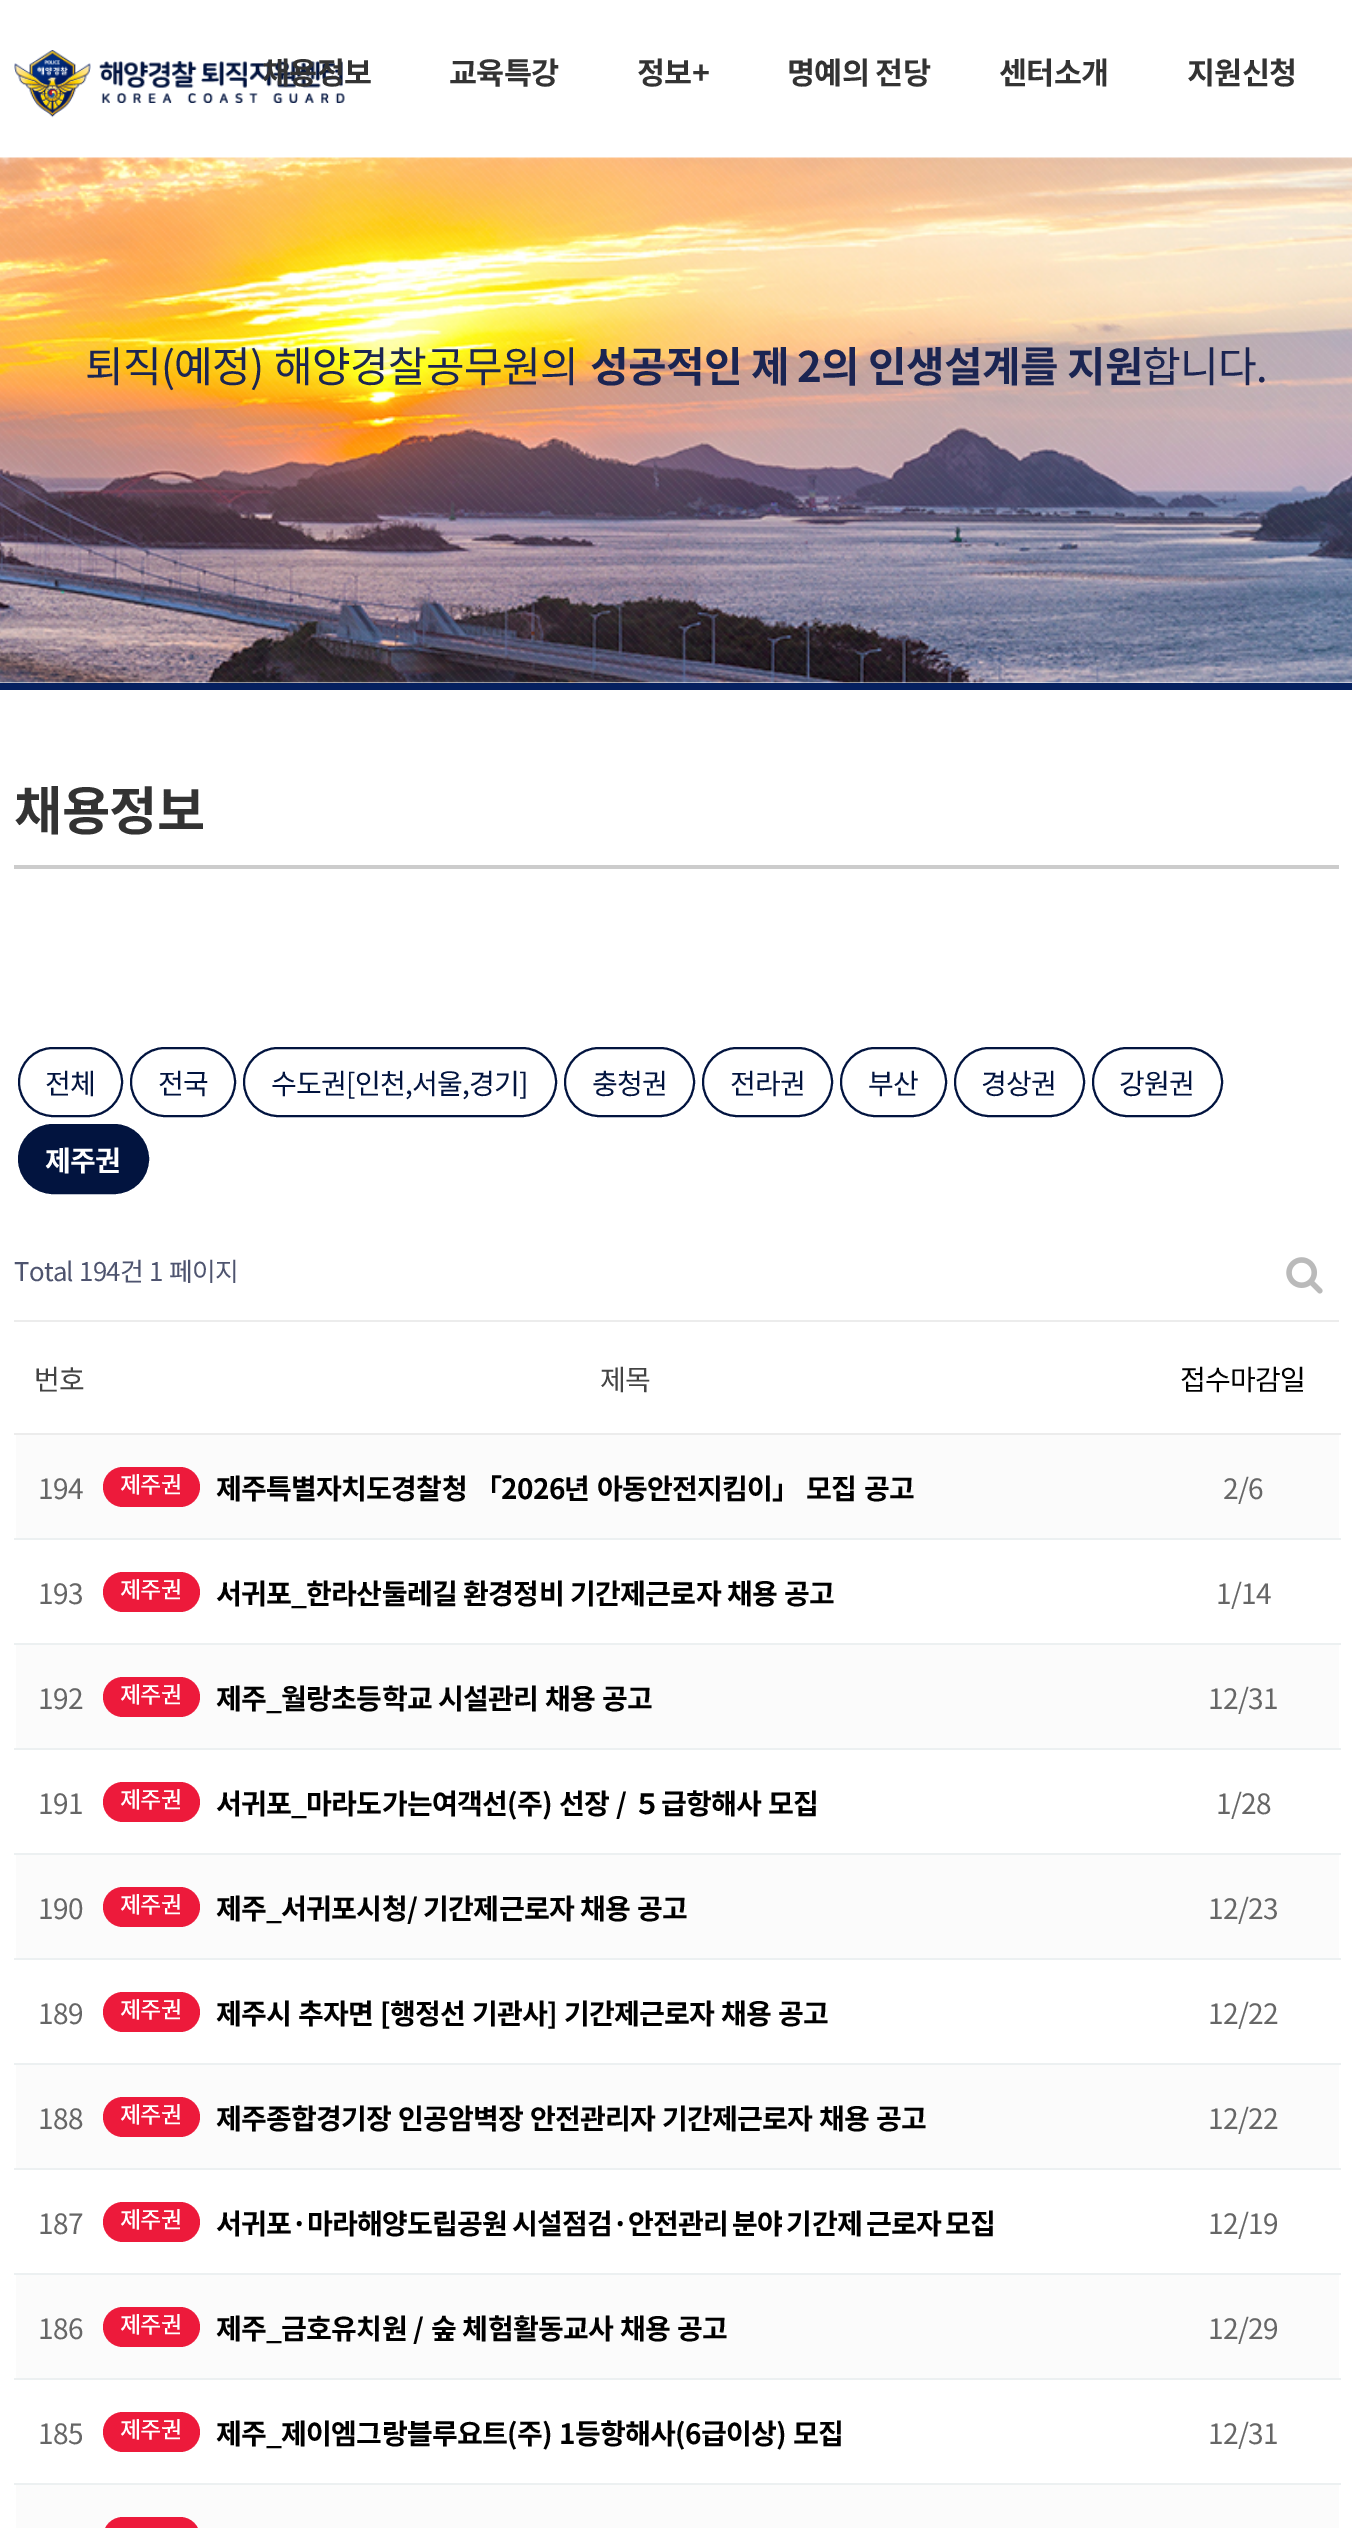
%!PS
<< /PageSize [1352 2528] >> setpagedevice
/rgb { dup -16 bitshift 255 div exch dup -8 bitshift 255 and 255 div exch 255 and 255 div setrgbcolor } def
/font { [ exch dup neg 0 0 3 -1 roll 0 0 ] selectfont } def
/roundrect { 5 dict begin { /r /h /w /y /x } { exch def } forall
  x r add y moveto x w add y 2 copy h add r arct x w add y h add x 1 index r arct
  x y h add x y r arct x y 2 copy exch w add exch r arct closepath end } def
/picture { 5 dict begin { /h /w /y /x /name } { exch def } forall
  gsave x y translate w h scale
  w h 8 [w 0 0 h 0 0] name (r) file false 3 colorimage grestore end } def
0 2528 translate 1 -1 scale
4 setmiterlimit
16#FFFFFF rgb
0 0 1352 2528 rectfill
(pic1.raw) 14 50 331 68 picture
/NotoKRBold-Bold 30.5 font
16#333333 rgb
262 84 moveto -0.7 0 (채용정보) ashow
449 84 moveto -0.7 0 (교육특강) ashow
637 84 moveto -0.7 0 (정보+) ashow
787 84 moveto -0.7 0 (명예의 전당) ashow
999 84 moveto -0.7 0 (센터소개) ashow
1187 84 moveto -0.7 0 (지원신청) ashow
(pic2.raw) 0 157 1352 526 picture
/NotoSansKR-Regular 42 font
16#1B2552 rgb
85 382 moveto 2 0 32 -0.7 0 (퇴직\(예정\) 해양경찰공무원의) awidthshow
/NotoKRBold-Bold 42 font
590 382 moveto -0.7 0 (성공적인 제 2의 인생설계를 지원) ashow
/NotoSansKR-Regular 42 font
1142 382 moveto -0.7 0 (합니다.) ashow
16#05205F rgb
0 683 1352 7 rectfill
16#CCCCCC rgb
14 865 1325 4 rectfill
/NotoKRBold-Bold 52.5 font
16#333333 rgb
14 830 moveto -0.7 0 (채용정보) ashow
16#02143F rgb
2 setlinewidth
19 1048 103 68 34 roundrect stroke
/NotoSansKR-Regular 28 font
45 1094 moveto -0.7 0 (전체) ashow
131 1048 104 68 34 roundrect stroke
158 1094 moveto -0.7 0 (전국) ashow
244 1048 312 68 34 roundrect stroke
271 1094 moveto -0.7 0 (수도권[인천,서울,경기]) ashow
565 1048 129 68 34 roundrect stroke
592 1094 moveto -0.7 0 (충청권) ashow
703 1048 129 68 34 roundrect stroke
730 1094 moveto -0.7 0 (전라권) ashow
841 1048 105 68 34 roundrect stroke
868 1094 moveto -0.7 0 (부산) ashow
955 1048 129 68 34 roundrect stroke
981 1094 moveto -0.7 0 (경상권) ashow
1093 1048 129 68 34 roundrect stroke
1119 1094 moveto -0.7 0 (강원권) ashow
19 1125 129 68 34 roundrect gsave fill grestore
stroke
/NotoSansKR-Bold 28 font
16#FFFFFF rgb
45 1171 moveto -0.7 0 (제주권) ashow
/NotoSansKR-Regular 25.75 font
16#4E546F rgb
14 1281 moveto 1 0 32 -0.7 0 (Total 194건) awidthshow
149 1281 moveto 1 0 32 -0.7 0 (1 페이지) awidthshow
(pic3.raw) 1286 1257 37 37 picture
16#ECECEC rgb
14 1320 1325 2 rectfill
/NotoSansKR-Regular 28 font
16#444444 rgb
34 1390 moveto -0.7 0 (번호) ashow
600 1390 moveto -0.7 0 (제목) ashow
16#ECECEC rgb
14 1433 1327 2 rectfill
16#000000 rgb
1180 1390 moveto -0.7 0 (접수마감일) ashow
16#FBFBFB rgb
16 1435 1323 103 rectfill
16#666666 rgb
38 1499 moveto -0.7 0 (194) ashow
16#ED1A3B rgb
103 1467 97 40 20 roundrect fill
/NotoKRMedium-Medium 23 font
16#FFFFFF rgb
120 1493 moveto -0.7 0 (제주권) ashow
/NotoSansKR-Bold 28 font
16#000000 rgb
216 1499 moveto 1.5 0 32 -0.7 0 (제주특별자치도경찰청 「2026년 아동안전지킴이」 모집 공고) awidthshow
/NotoSansKR-Regular 28 font
16#666666 rgb
1223 1499 moveto -0.7 0 (2/6) ashow
38 1604 moveto -0.7 0 (193) ashow
16#ED1A3B rgb
103 1572 97 40 20 roundrect fill
/NotoKRMedium-Medium 23 font
16#FFFFFF rgb
120 1598 moveto -0.7 0 (제주권) ashow
/NotoSansKR-Bold 28 font
16#000000 rgb
216 1604 moveto 1 0 32 -0.7 0 (서귀포_한라산둘레길 환경정비 기간제근로자 채용 공고) awidthshow
16#ECF0F1 rgb
14 1538 1327 2 rectfill
/NotoSansKR-Regular 28 font
16#666666 rgb
1216 1604 moveto -0.7 0 (1/14) ashow
16#FBFBFB rgb
16 1645 1323 103 rectfill
16#666666 rgb
38 1709 moveto -0.7 0 (192) ashow
16#ED1A3B rgb
103 1677 97 40 20 roundrect fill
/NotoKRMedium-Medium 23 font
16#FFFFFF rgb
120 1703 moveto -0.7 0 (제주권) ashow
/NotoSansKR-Bold 28 font
16#000000 rgb
216 1709 moveto 1 0 32 -0.7 0 (제주_월랑초등학교 시설관리 채용 공고) awidthshow
16#ECF0F1 rgb
14 1643 1327 2 rectfill
/NotoSansKR-Regular 28 font
16#666666 rgb
1208 1709 moveto -0.7 0 (12/31) ashow
38 1814 moveto -0.7 0 (191) ashow
16#ED1A3B rgb
103 1782 97 40 20 roundrect fill
/NotoKRMedium-Medium 23 font
16#FFFFFF rgb
120 1808 moveto -0.7 0 (제주권) ashow
/NotoSansKR-Bold 28 font
16#000000 rgb
216 1814 moveto 1.5 0 32 -0.7 0 (서귀포_마라도가는여객선\(주\) 선장 / ５급항해사 모집) awidthshow
16#ECF0F1 rgb
14 1748 1327 2 rectfill
/NotoSansKR-Regular 28 font
16#666666 rgb
1216 1814 moveto -0.7 0 (1/28) ashow
16#FBFBFB rgb
16 1855 1323 103 rectfill
16#666666 rgb
38 1919 moveto -0.7 0 (190) ashow
16#ED1A3B rgb
103 1887 97 40 20 roundrect fill
/NotoKRMedium-Medium 23 font
16#FFFFFF rgb
120 1913 moveto -0.7 0 (제주권) ashow
/NotoSansKR-Bold 28 font
16#000000 rgb
216 1919 moveto 1 0 32 -0.7 0 (제주_서귀포시청/ 기간제근로자 채용 공고) awidthshow
16#ECF0F1 rgb
14 1853 1327 2 rectfill
/NotoSansKR-Regular 28 font
16#666666 rgb
1208 1919 moveto -0.7 0 (12/23) ashow
38 2024 moveto -0.7 0 (189) ashow
16#ED1A3B rgb
103 1992 97 40 20 roundrect fill
/NotoKRMedium-Medium 23 font
16#FFFFFF rgb
120 2018 moveto -0.7 0 (제주권) ashow
/NotoSansKR-Bold 28 font
16#000000 rgb
216 2024 moveto 1.25 0 32 -0.7 0 (제주시 추자면 [행정선 기관사] 기간제근로자 채용 공고) awidthshow
16#ECF0F1 rgb
14 1958 1327 2 rectfill
/NotoSansKR-Regular 28 font
16#666666 rgb
1208 2024 moveto -0.7 0 (12/22) ashow
16#FBFBFB rgb
16 2065 1323 103 rectfill
16#666666 rgb
38 2129 moveto -0.7 0 (188) ashow
16#ED1A3B rgb
103 2097 97 40 20 roundrect fill
/NotoKRMedium-Medium 23 font
16#FFFFFF rgb
120 2123 moveto -0.7 0 (제주권) ashow
/NotoSansKR-Bold 28 font
16#000000 rgb
216 2129 moveto 1 0 32 -0.7 0 (제주종합경기장 인공암벽장 안전관리자 기간제근로자 채용 공고) awidthshow
16#ECF0F1 rgb
14 2063 1327 2 rectfill
/NotoSansKR-Regular 28 font
16#666666 rgb
1208 2129 moveto -0.7 0 (12/22) ashow
38 2234 moveto -0.7 0 (187) ashow
16#ED1A3B rgb
103 2202 97 40 20 roundrect fill
/NotoKRMedium-Medium 23 font
16#FFFFFF rgb
120 2228 moveto -0.7 0 (제주권) ashow
/NotoSansKR-Bold 28 font
16#000000 rgb
216 2234 moveto -1.5 0 32 -0.7 0 (서귀포·마라해양도립공원 시설점검·안전관리 분야 기간제 근로자 모집) awidthshow
16#ECF0F1 rgb
14 2168 1327 2 rectfill
/NotoSansKR-Regular 28 font
16#666666 rgb
1208 2234 moveto -0.7 0 (12/19) ashow
16#FBFBFB rgb
16 2275 1323 103 rectfill
16#666666 rgb
38 2339 moveto -0.7 0 (186) ashow
16#ED1A3B rgb
103 2307 97 40 20 roundrect fill
/NotoKRMedium-Medium 23 font
16#FFFFFF rgb
120 2333 moveto -0.7 0 (제주권) ashow
/NotoSansKR-Bold 28 font
16#000000 rgb
216 2339 moveto 1.25 0 32 -0.7 0 (제주_금호유치원 / 숲 체험활동교사 채용 공고) awidthshow
16#ECF0F1 rgb
14 2273 1327 2 rectfill
/NotoSansKR-Regular 28 font
16#666666 rgb
1208 2339 moveto -0.7 0 (12/29) ashow
38 2444 moveto -0.7 0 (185) ashow
16#ED1A3B rgb
103 2412 97 40 20 roundrect fill
/NotoKRMedium-Medium 23 font
16#FFFFFF rgb
120 2438 moveto -0.7 0 (제주권) ashow
/NotoSansKR-Bold 28 font
16#000000 rgb
216 2444 moveto 1.5 0 32 -0.7 0 (제주_제이엠그랑블루요트\(주\) 1등항해사\(6급이상\) 모집) awidthshow
16#ECF0F1 rgb
14 2378 1327 2 rectfill
/NotoSansKR-Regular 28 font
16#666666 rgb
1208 2444 moveto -0.7 0 (12/31) ashow
16#ECF0F1 rgb
14 2483 1327 2 rectfill
16#FBFBFB rgb
16 2485 1323 43 rectfill
16#ED1A3B rgb
103 2517 97 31 20 roundrect fill
showpage
